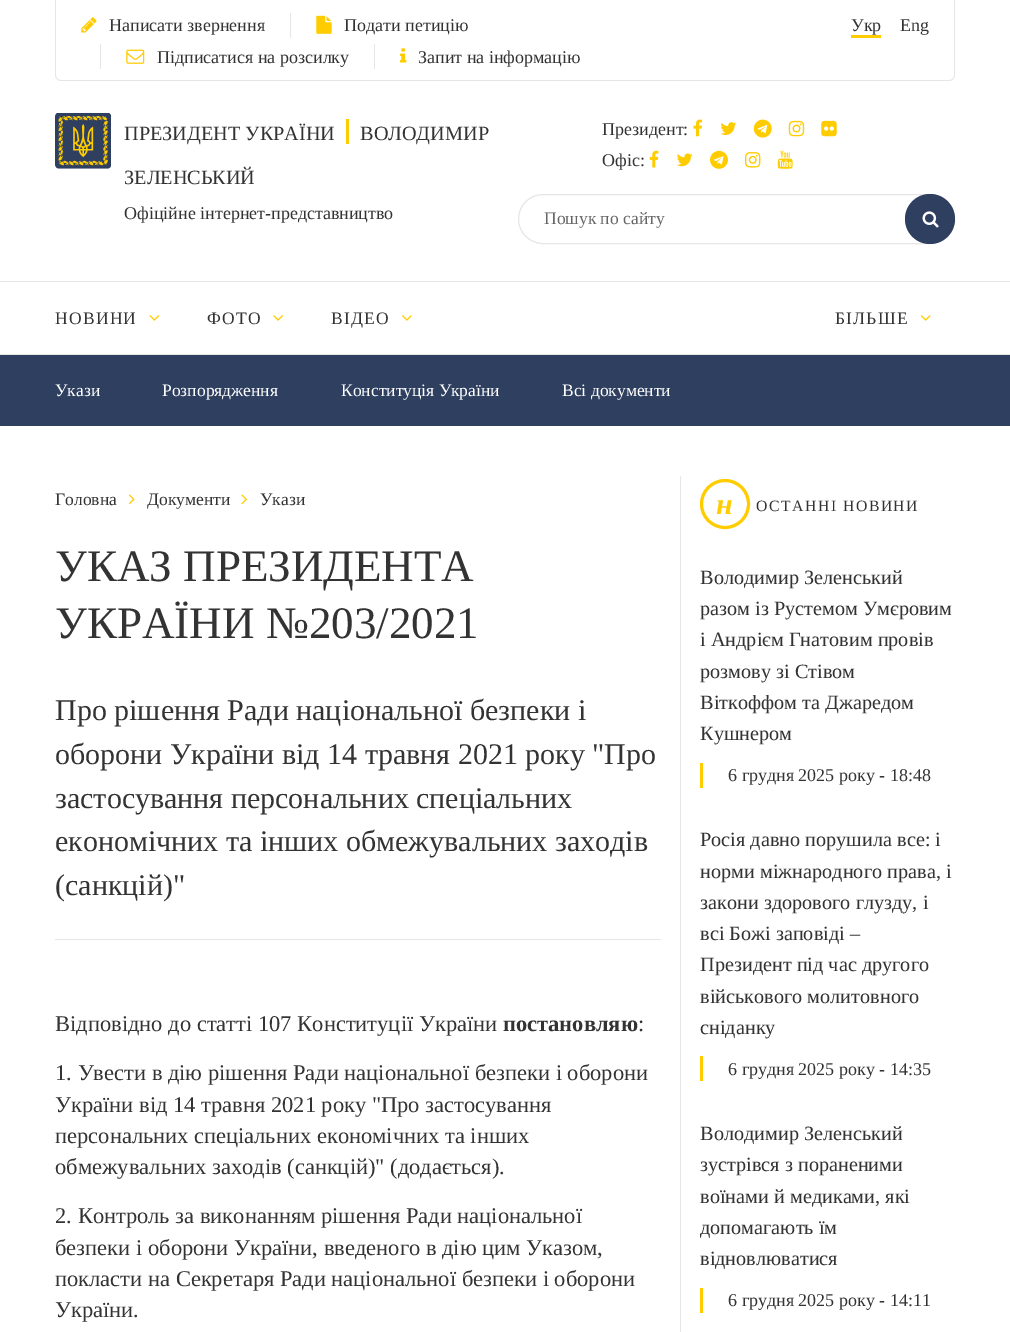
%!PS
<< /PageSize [1010 1332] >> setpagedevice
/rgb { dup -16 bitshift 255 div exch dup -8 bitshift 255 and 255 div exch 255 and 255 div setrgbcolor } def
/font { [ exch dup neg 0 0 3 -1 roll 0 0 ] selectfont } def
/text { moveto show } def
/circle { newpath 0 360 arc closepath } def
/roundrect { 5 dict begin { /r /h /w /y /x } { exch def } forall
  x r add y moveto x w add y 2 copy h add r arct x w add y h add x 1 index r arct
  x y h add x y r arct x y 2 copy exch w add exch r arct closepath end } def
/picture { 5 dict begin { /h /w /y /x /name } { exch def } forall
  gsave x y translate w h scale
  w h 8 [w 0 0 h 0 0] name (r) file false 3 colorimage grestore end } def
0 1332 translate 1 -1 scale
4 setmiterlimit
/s1 { /LiberationSerif-Regular 18 font 16#333333 rgb } def
/s2 { /LiberationSerif-Regular 20.25 font 16#333333 rgb } def
/s3 { /LiberationSerif-Regular 17.5 font 16#666666 rgb } def
/s4 { /LiberationSerif-Regular 17.5 font 16#FFFFFF rgb } def
/s5 { /LiberationSerif-Regular 17.5 font 16#333333 rgb } def
/s6 { /LiberationSerif-Regular 45 font 16#333333 rgb } def
/s7 { /LiberationSerif-Regular 30 font 16#333333 rgb } def
/s8 { /LiberationSerif-Regular 22.5 font 16#333333 rgb } def
/s9 { /LiberationSerif-Bold 22.5 font 16#333333 rgb } def
16#FFFFFF rgb
0 0 1010 1332 rectfill
16#E6E6E6 rgb
55 0 moveto 955 0 lineto 955 75 lineto 955 78 952 81 949 81 curveto 61 81 lineto 58 81 55 78 55 75 curveto closepath 56 0 moveto 954 0 lineto 954 75 lineto 954 78 952 80 949 80 curveto 61 80 lineto 58 80 56 78 56 75 curveto closepath eofill
(pic1.raw) 81 17 16 16 picture
s1
(Написати звернення) 109 31 text
16#E6E6E6 rgb
290 13 1 25 rectfill
(pic2.raw) 316 15 16 19 picture
s1
(Подати петицію) 344 31 text
16#E6E6E6 rgb
100 44 1 25 rectfill
(pic3.raw) 126 49 19 15 picture
s1
(Підписатися на розсилку) 157 63 text
16#E6E6E6 rgb
374 44 1 25 rectfill
(pic4.raw) 400 48 7 15 picture
s1
(Запит на інформацію) 418 63 text
(Укр) 851 31 text
16#FFCC00 rgb
851 35 30 3 rectfill
s1
(Eng) 900 31 text
(pic5.raw) 55 113 56 56 picture
s2
(ПРЕЗИДЕНТ УКРАЇНИ) 124 140 text
16#FFCC00 rgb
346 119 3 25 rectfill
s2
(ВОЛОДИМИР) 360 140 text
(ЗЕЛЕНСЬКИЙ) 124 184 text
s1
(Офіційне інтернет-представництво) 124 219 text
(Президент:) 602 135 text
(pic6.raw) 693 119 10 18 picture
(pic7.raw) 720 122 17 13 picture
(pic8.raw) 753 119 19 19 picture
(pic9.raw) 788 120 17 17 picture
(pic10.raw) 821 120 16 17 picture
(Офіс:) 602 166 text
(pic11.raw) 649 150 10 18 picture
(pic12.raw) 676 153 17 14 picture
(pic13.raw) 710 150 18 19 picture
(pic14.raw) 745 152 16 16 picture
(pic15.raw) 777 150 16 19 picture
16#E6E6E6 rgb
518.5 194.5 436 49 24.5 roundrect stroke
s3
(Пошук по сайту) 544 224 text
16#2F3F60 rgb
930 219 25 circle fill
(pic16.raw) 922 211 17 17 picture
16#E6E6E6 rgb
0 281 1010 1 rectfill
16#E5E5E5 rgb
0 354 1010 1 rectfill
16#333333 rgb
55 324 moveto 1.25 0 (НОВИНИ) ashow
(pic17.raw) 149 315 11 6 picture
207 324 moveto 1.25 0 (ФОТО) ashow
(pic18.raw) 273 315 10 6 picture
331 324 moveto 1.25 0 (ВІДЕО) ashow
(pic19.raw) 402 315 10 6 picture
835 324 moveto 1.25 0 (БІЛЬШЕ) ashow
(pic20.raw) 920 315 11 6 picture
16#2F3F60 rgb
0 355 1010 71 rectfill
s4
(Укази) 55 396 text
(Розпорядження) 162 396 text
(Конституція України) 341 396 text
(Всі документи) 562 396 text
s5
(Головна) 55 505 text
(pic21.raw) 128 494 7 11 picture
(Документи) 147 505 text
(pic22.raw) 241 494 6 11 picture
(Укази) 260 505 text
s6
(УКАЗ ПРЕЗИДЕНТА) 55 581 text
(УКРАЇНИ №203/2021) 55 638 text
s7
(Про рішення Ради національної безпеки і) 55 720 text
(оборони України від 14 травня 2021 року "Про) 55 764 text
(застосування персональних спеціальних) 55 808 text
(економічних та інших обмежувальних заходів) 55 851 text
(\(санкцій\)") 55 895 text
16#E6E6E6 rgb
55 939 606 1 rectfill
s8
(Відповідно до статті 107 Конституції України) 55 1031 text
s9
(постановляю) 503 1031 text
s8
(:) 638 1031 text
(1. Увести в дію рішення Ради національної безпеки і оборони) 55 1080 text
(України від 14 травня 2021 року "Про застосування) 55 1112 text
(персональних спеціальних економічних та інших) 55 1143 text
(обмежувальних заходів \(санкцій\)" \(додається\).) 55 1174 text
(2. Контроль за виконанням рішення Ради національної) 55 1223 text
(безпеки і оборони України, введеного в дію цим Указом,) 55 1255 text
(покласти на Секретаря Ради національної безпеки і оборони) 55 1286 text
(України.) 55 1317 text
16#E6E6E6 rgb
680 476 1 856 rectfill
16#FFCC00 rgb
3 setlinewidth
725 504 23.5 circle stroke
/LiberationSerif-BoldItalic 30 font
716 514 moveto 1.5 0 (н) ashow
/LiberationSerif-Regular 15.75 font
16#333333 rgb
756 511 moveto 1.5 0 (ОСТАННІ НОВИНИ) ashow
s2
(Володимир Зеленський) 700 584 text
(разом із Рустемом Умєровим) 700 615 text
(і Андрієм Гнатовим провів) 700 646 text
(розмову зі Стівом) 700 678 text
(Віткоффом та Джаредом) 700 709 text
(Кушнером) 700 740 text
16#FFCC00 rgb
700 763 3 25 rectfill
s1
(6 грудня 2025 року - 18:48) 728 781 text
s2
(Росія давно порушила все: і) 700 846 text
(норми міжнародного права, і) 700 878 text
(закони здорового глузду, і) 700 909 text
(всі Божі заповіді –) 700 940 text
(Президент під час другого) 700 971 text
(військового молитовного) 700 1003 text
(сніданку) 700 1034 text
16#FFCC00 rgb
700 1056 3 25 rectfill
s1
(6 грудня 2025 року - 14:35) 728 1075 text
s2
(Володимир Зеленський) 700 1140 text
(зустрівся з пораненими) 700 1171 text
(воїнами й медиками, які) 700 1203 text
(допомагають їм) 700 1234 text
(відновлюватися) 700 1265 text
16#FFCC00 rgb
700 1288 3 25 rectfill
s1
(6 грудня 2025 року - 14:11) 728 1306 text
showpage
